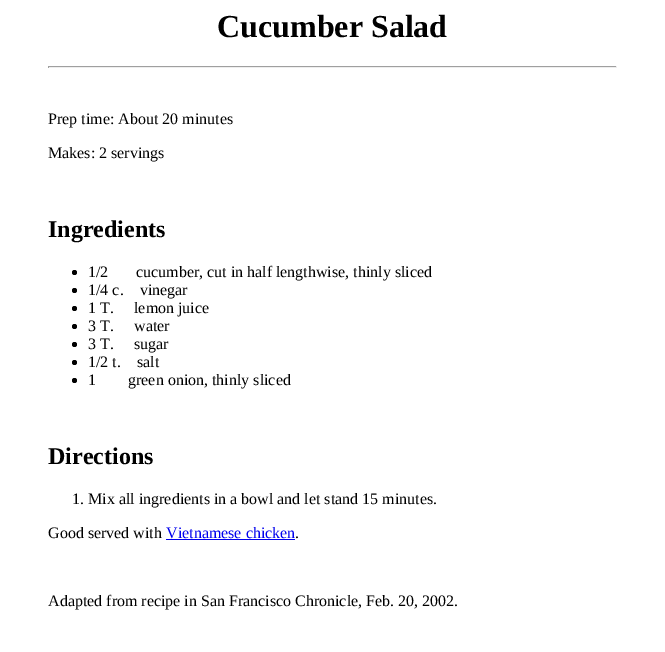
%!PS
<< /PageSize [665 652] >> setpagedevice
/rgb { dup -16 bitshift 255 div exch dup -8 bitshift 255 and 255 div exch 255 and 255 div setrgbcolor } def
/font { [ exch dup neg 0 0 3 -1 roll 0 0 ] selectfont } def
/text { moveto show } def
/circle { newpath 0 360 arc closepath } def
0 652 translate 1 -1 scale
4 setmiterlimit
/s1 { /LiberationSerif-Bold 32 font 16#000000 rgb } def
/s2 { /LiberationSerif-Regular 16 font 16#000000 rgb } def
/s3 { /LiberationSerif-Bold 24 font 16#000000 rgb } def
/s4 { /LiberationSerif-Regular 16 font 16#0000EE rgb } def
16#FFFFFF rgb
0 0 665 652 rectfill
s1
(Cucumber Salad) 217 37 text
16#9F9F9F rgb
48 66 569 1 rectfill
16#EEEEEE rgb
616 66 1 2 rectfill
48 67 569 1 rectfill
16#9F9F9F rgb
48 66 1 2 rectfill
s2
(Prep time: About 20 minutes) 48 124 text
(Makes: 2 servings) 48 158 text
s3
(Ingredients) 48 237 text
74.5 272.5 2.5 circle fill
s2
(1/2) 88 277 text
(cucumber, cut in half lengthwise, thinly sliced) 136 277 text
74.5 290.5 2.5 circle fill
(1/4 c.    vinegar) 88 295 text
74.5 308.5 2.5 circle fill
(1 T.) 88 313 text
(lemon juice) 134 313 text
74.5 326.5 2.5 circle fill
(3 T.) 88 331 text
(water) 134 331 text
74.5 344.5 2.5 circle fill
(3 T.) 88 349 text
(sugar) 134 349 text
74.5 362.5 2.5 circle fill
(1/2 t.) 88 367 text
(salt) 137 367 text
74.5 380.5 2.5 circle fill
(1) 88 385 text
(green onion, thinly sliced) 128 385 text
s3
(Directions) 48 464 text
s2
(1. Mix all ingredients in a bowl and let stand 15 minutes.) 72 504 text
(Good served with) 48 538 text
s4
(Vietnamese chicken) 166 538 text
166 539 129 1 rectfill
s2
(.) 295 538 text
(Adapted from recipe in San Francisco Chronicle, Feb. 20, 2002.) 48 606 text
showpage
